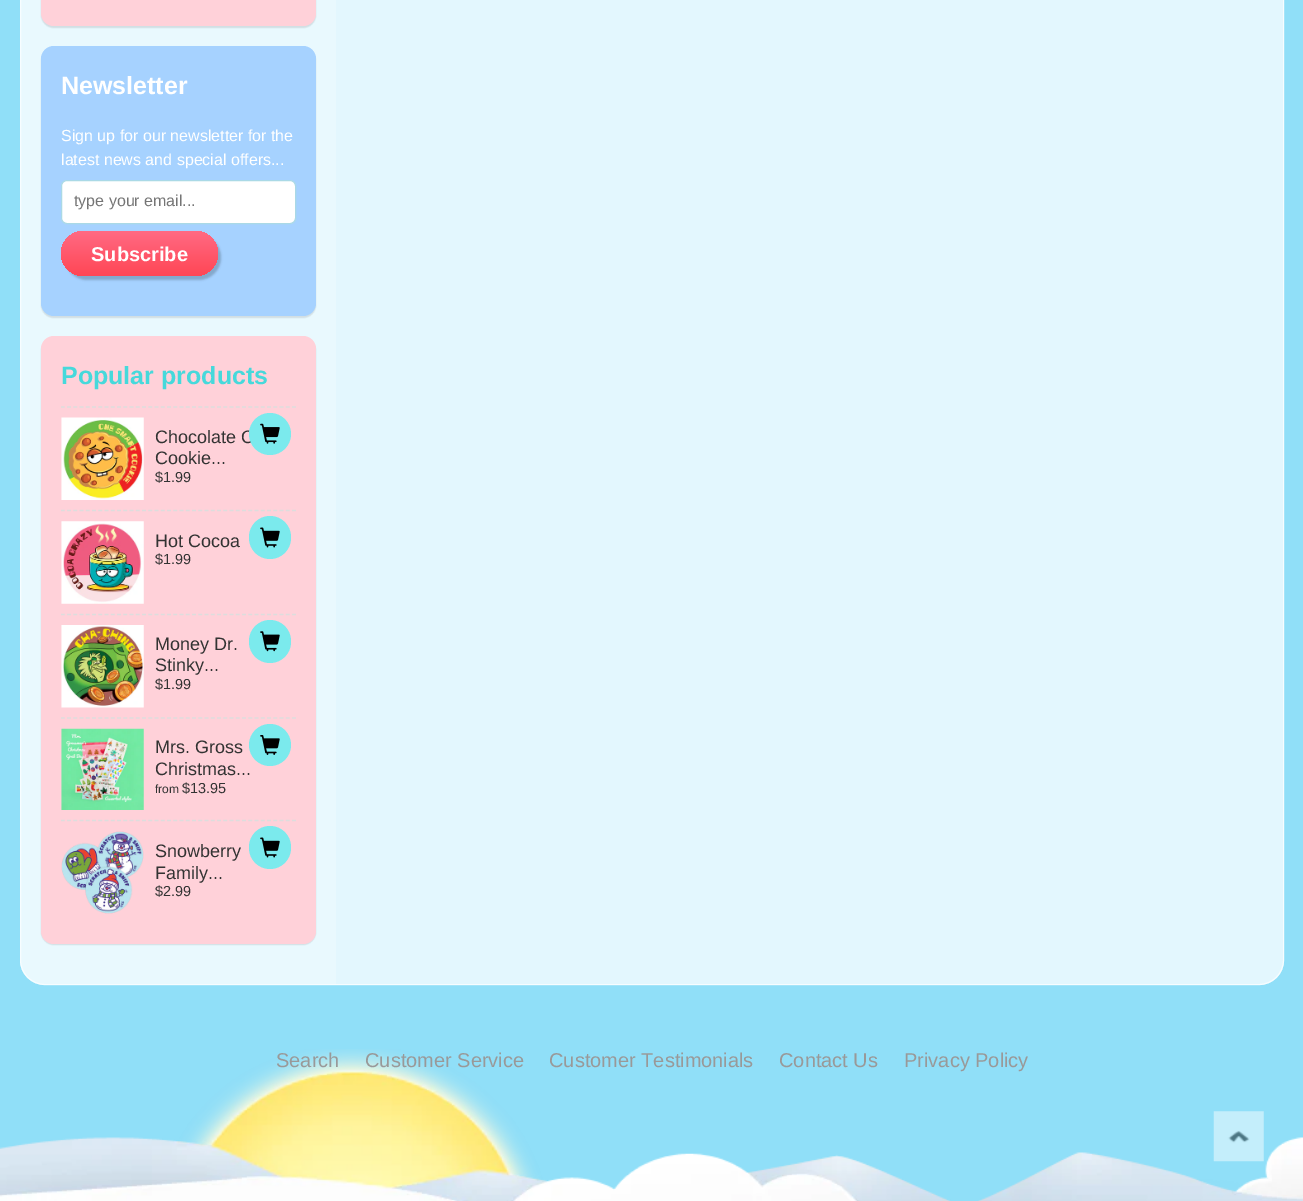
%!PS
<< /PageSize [1303 1201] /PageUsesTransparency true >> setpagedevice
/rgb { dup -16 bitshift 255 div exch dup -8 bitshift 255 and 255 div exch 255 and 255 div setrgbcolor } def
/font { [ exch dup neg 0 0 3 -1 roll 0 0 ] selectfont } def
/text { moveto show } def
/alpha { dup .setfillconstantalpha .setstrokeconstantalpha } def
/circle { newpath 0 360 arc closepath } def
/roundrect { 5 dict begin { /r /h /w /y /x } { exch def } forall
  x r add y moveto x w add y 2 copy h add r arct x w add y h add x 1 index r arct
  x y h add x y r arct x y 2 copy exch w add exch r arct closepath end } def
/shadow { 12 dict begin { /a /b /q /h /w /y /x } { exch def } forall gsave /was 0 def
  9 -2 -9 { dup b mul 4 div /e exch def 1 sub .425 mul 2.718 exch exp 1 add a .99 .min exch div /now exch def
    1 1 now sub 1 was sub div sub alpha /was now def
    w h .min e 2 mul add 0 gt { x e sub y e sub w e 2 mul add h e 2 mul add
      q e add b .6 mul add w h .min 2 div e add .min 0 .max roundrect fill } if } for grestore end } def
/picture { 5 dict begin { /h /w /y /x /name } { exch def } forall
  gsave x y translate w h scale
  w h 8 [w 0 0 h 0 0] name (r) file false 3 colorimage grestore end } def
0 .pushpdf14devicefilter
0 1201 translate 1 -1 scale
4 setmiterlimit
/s1 { /LiberationSans-Bold 25 font 16#FFFFFF rgb } def
/s2 { /LiberationSans-Regular 16 font 16#FFFFFF rgb } def
/s3 { /LiberationSans-Regular 16 font 16#757575 rgb } def
/s4 { /LiberationSans-Bold 20 font 16#FFFFFF rgb } def
/s5 { /LiberationSans-Bold 25 font 16#46D9DB rgb } def
/s6 { /LiberationSans-Regular 18 font 16#333333 rgb } def
/s7 { /LiberationSans-Regular 14.5 font 16#333333 rgb } def
/s8 { /LiberationSans-Regular 12 font 16#333333 rgb } def
/s9 { /LiberationSans-Regular 20 font 16#999999 rgb } def
16#90DFF8 rgb
0 0 1303 1201 rectfill
16#E3F7FE rgb
20 -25 1264 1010 25 roundrect fill
0.7 alpha
16#FFFFFF rgb
20.5 -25.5 1263 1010 24.5 roundrect stroke
0.2 alpha
45 -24 moveto 336 -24 lineto 336 984 lineto 45 984 lineto 31.5 984 21 973.5 21 960 curveto 21 0 lineto 21 -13.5 31.5 -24 45 -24 curveto closepath fill
1 alpha
16#000000 rgb
41 -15 275 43 13 0.5 0.1 shadow
16#FFD1D9 rgb
41 -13 275 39 13 roundrect fill
16#000000 rgb
41 48 275 270 13 0.5 0.1 shadow
16#A6D2FF rgb
41 46 275 270 13 roundrect fill
s1
(Newsletter) 61 94 text
s2
(Sign up for our newsletter for the) 61 141 text
(latest news and special offers...) 61 165 text
61.5 180.5 234 43 5.5 roundrect gsave fill grestore
16#AAD9E6 rgb
stroke
s3
(type your email...) 74 206 text
16#000000 rgb
65 235 156 45 22.5 1 0.2 shadow
gsave 61 231 157 45 22.5 roundrect clip newpath
<< /ShadingType 2 /ColorSpace /DeviceRGB /Coords [139 231 139 276] /Extend [true true] /Function << /FunctionType 2 /Domain [0 1] /C0 [1 0.416 0.514] /C1 [1 0.275 0.333] /N 1 >> >> shfill grestore
s4
(Subscribe) 91 261 text
16#000000 rgb
41 338 275 607 13 0.5 0.1 shadow
16#FFD1D9 rgb
41 336 275 608 13 roundrect fill
s5
(Popular products) 61 384 text
16#DDDDDD rgb
1.2 setlinewidth
[3.75 2.5] 0 setdash
61 407 moveto 296 407 lineto stroke
(pic1.raw) 61 417 83 83 picture
s6
(Chocolate C) 155 443 text
(Cookie...) 155 464 text
s7
($1.99) 155 482 text
16#7BEAED rgb
270 434 21 circle fill
(pic2.raw) 260 423 20 21 picture
16#DDDDDD rgb
61 510.5 moveto 296 510.5 lineto stroke
(pic3.raw) 61 521 83 83 picture
s6
(Hot Cocoa) 155 547 text
s7
($1.99) 155 564 text
16#7BEAED rgb
249 516 42 43 21 roundrect fill
(pic4.raw) 260 527 20 21 picture
16#DDDDDD rgb
61 614.5 moveto 296 614.5 lineto stroke
(pic5.raw) 61 625 83 83 picture
s6
(Money Dr.) 155 650 text
(Stinky...) 155 671 text
s7
($1.99) 155 689 text
16#7BEAED rgb
249 620 42 43 21 roundrect fill
(pic6.raw) 260 631 20 21 picture
16#DDDDDD rgb
61 718 moveto 296 718 lineto stroke
(pic7.raw) 61 728 83 82 picture
s6
(Mrs. Gross) 155 753 text
(Christmas...) 155 775 text
s8
(from) 155 793 text
s7
($13.95) 182 793 text
16#7BEAED rgb
270 745 21 circle fill
(pic8.raw) 260 735 20 20 picture
16#DDDDDD rgb
61 820.5 moveto 296 820.5 lineto stroke
(pic9.raw) 61 831 83 83 picture
s6
(Snowberry) 155 857 text
(Family...) 155 879 text
s7
($2.99) 155 896 text
16#7BEAED rgb
249 826 42 43 21 roundrect fill
(pic4.raw) 260 837 20 21 picture
(pic10.raw) 0 1049 1303 152 picture
s9
(Search) 276 1067 text
(Customer Service) 365 1067 text
(Customer Testimonials) 549 1067 text
(Contact Us) 779 1067 text
(Privacy Policy) 904 1067 text
(pic11.raw) 1213 1111 51 51 picture
.poppdf14devicefilter showpage
